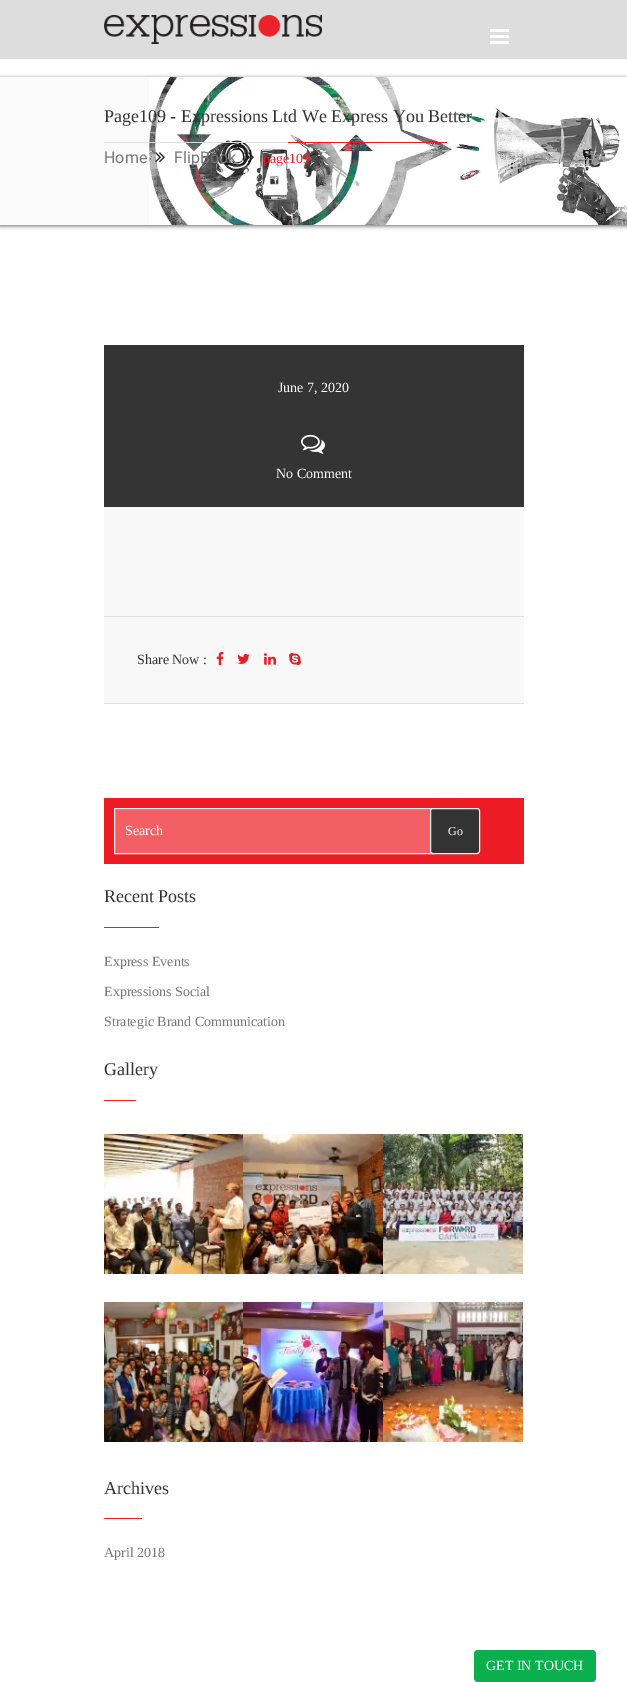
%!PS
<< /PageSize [627 1682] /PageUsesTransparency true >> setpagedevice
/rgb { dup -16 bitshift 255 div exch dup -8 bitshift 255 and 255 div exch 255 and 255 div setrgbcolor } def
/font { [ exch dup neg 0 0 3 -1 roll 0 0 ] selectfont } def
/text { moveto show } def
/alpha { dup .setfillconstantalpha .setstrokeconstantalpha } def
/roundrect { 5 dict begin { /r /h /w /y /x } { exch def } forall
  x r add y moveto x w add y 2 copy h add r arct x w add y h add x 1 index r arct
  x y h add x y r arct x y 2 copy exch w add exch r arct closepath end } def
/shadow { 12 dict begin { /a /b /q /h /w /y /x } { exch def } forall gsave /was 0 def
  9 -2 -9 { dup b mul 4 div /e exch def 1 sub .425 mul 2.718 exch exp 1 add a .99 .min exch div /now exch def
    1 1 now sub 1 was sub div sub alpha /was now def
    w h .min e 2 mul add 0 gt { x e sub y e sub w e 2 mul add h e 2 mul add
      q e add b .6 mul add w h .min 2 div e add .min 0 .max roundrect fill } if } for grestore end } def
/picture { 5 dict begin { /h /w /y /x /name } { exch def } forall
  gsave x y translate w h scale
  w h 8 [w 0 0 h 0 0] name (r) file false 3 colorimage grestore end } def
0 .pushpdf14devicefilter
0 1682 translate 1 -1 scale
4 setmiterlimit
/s1 { /LiberationSerif-Regular 18 font 16#333333 rgb } def
/s2 { /Roboto-Regular 16 font 16#777777 rgb } def
/s3 { /LiberationSerif-Regular 14 font 16#ED1C24 rgb } def
/s4 { /LiberationSerif-Regular 14 font 16#FFFFFF rgb } def
/s5 { /LiberationSerif-Regular 14 font 16#333333 rgb } def
/s6 { /LiberationSerif-Regular 12 font 16#FFFFFF rgb } def
/s7 { /LiberationSerif-Regular 14 font 16#777777 rgb } def
16#FFFFFF rgb
0 0 627 1682 rectfill
16#DDDDDD rgb
0 0 627 59 rectfill
(pic1.raw) 104 15 218 29 picture
16#FFFFFF rgb
490 29 19 3 rectfill
490 35 19 3 rectfill
490 41 19 3 rectfill
16#000000 rgb
0 78 627 148 0 2 0.6 shadow
16#FBFBFB rgb
0 77 149 148 rectfill
(pic2.raw) 149 77 478 148 picture
s1
(Page109 - Expressions Ltd We Express You Better) 104 122 text
16#DDDDDD rgb
104 142 184 1 rectfill
16#ED1C24 rgb
288 142 159 1 rectfill
s2
(Home) 104 163 text
(pic3.raw) 155 152 10 11 picture
(FlipBook) 174 163 text
(pic4.raw) 244 152 10 10 picture
s3
(page109) 263 163 text
16#F8F8F8 rgb
104 507 420 196 rectfill
16#343434 rgb
104 345 420 162 rectfill
s4
(June 7, 2020) 278 392 text
(pic5.raw) 301 434 24 20 picture
(No Comment) 276 478 text
16#DDDDDD rgb
104 616 420 1 rectfill
104 703 420 1 rectfill
s5
(Share Now :) 137 664 text
(pic6.raw) 216 652 8 13 picture
(pic7.raw) 237 654 13 10 picture
(pic8.raw) 264 653 12 12 picture
(pic9.raw) 289 653 12 12 picture
16#ED1C24 rgb
104 798 420 66 rectfill
16#F26066 rgb
115 810 316 43 rectfill
16#E0595E rgb
115 809 318 1 rectfill
16#EEEEEE rgb
114.5 808.5 319 45 rectstroke
s4
(Search) 125 835 text
16#333333 rgb
430.5 808.5 49 45 2.5 roundrect gsave fill grestore
16#EEEEEE rgb
stroke
s6
(Go) 448 835 text
s1
(Recent Posts) 104 902 text
16#ED1C24 rgb
104 927 55 1 rectfill
s7
(Express Events) 104 966 text
(Expressions Social) 104 996 text
(Strategic Brand Communication) 104 1026 text
s1
(Gallery) 104 1075 text
16#ED1C24 rgb
104 1100 32 1 rectfill
(pic10.raw) 104 1134 139 140 picture
(pic11.raw) 243 1134 140 140 picture
(pic12.raw) 383 1134 140 140 picture
(pic13.raw) 104 1302 139 140 picture
(pic14.raw) 243 1302 140 140 picture
(pic15.raw) 383 1302 140 140 picture
s1
(Archives) 104 1494 text
16#ED1C24 rgb
104 1518 38 1 rectfill
s7
(April 2018) 104 1557 text
16#0BAF4E rgb
474 1650 122 32 4 roundrect fill
s4
(GET IN TOUCH) 486 1670 text
.poppdf14devicefilter showpage
